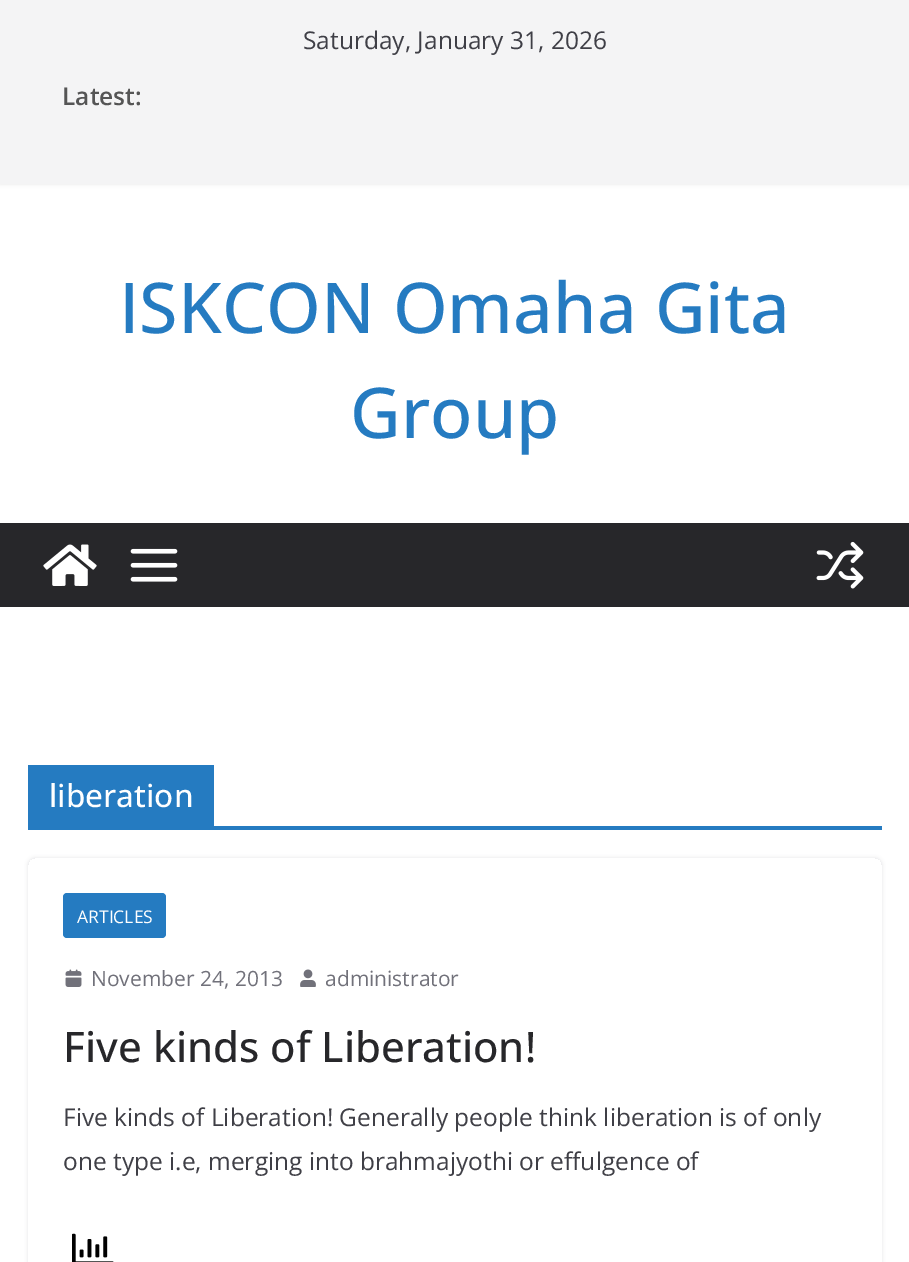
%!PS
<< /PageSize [909 1262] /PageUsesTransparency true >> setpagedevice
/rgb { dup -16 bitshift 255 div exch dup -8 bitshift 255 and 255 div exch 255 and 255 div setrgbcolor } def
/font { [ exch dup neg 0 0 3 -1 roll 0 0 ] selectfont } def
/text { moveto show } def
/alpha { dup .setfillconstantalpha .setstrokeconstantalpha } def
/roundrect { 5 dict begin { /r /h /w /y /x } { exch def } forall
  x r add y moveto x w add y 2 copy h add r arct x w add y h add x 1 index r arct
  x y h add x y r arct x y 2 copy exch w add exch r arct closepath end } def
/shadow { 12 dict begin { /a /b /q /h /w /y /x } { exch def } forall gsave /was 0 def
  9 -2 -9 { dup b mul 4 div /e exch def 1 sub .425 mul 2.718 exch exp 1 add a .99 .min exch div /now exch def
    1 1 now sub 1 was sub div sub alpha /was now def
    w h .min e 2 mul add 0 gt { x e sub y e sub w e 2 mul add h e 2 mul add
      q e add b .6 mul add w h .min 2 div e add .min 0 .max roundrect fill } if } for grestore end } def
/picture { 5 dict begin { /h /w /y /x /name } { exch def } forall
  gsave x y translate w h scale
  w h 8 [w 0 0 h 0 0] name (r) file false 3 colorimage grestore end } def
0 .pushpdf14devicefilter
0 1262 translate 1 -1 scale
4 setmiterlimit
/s1 { /OpenSans-Regular 24.5 font 16#3F3F46 rgb } def
/s2 { /OpenSans-SemiBold 24.5 font 16#555555 rgb } def
/s3 { /OpenSans-Medium 70 font 16#257BC1 rgb } def
/s4 { /OpenSans-Medium 31.5 font 16#FFFFFF rgb } def
/s5 { /OpenSans-Regular 17.5 font 16#FFFFFF rgb } def
/s6 { /OpenSans-Regular 21 font 16#71717A rgb } def
/s7 { /OpenSans-Medium 42 font 16#27272A rgb } def
16#FFFFFF rgb
0 0 909 1262 rectfill
16#000000 rgb
0 0 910 184 0 2 0.1 shadow
16#F4F4F5 rgb
0 0 909 184 rectfill
s1
(Saturday, January 31, 2026) 303 49 text
s2
(Latest:) 62 105 text
s3
(ISKCON Omaha Gita) 119 333 text
(Group) 350 438 text
16#27272A rgb
0 523 909 84 rectfill
(pic1.raw) 43 544 54 42 picture
(pic2.raw) 130 548 48 34 picture
(pic3.raw) 816 541 48 48 picture
16#257BC1 rgb
28 826 854 4 rectfill
28 765 186 61 rectfill
s4
(liberation) 49 807 text
gsave
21 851 moveto 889 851 lineto 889 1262 lineto 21 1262 lineto closepath 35 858 moveto 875 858 lineto 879 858 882 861 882 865 curveto 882 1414 lineto 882 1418 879 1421 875 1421 curveto 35 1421 lineto 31 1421 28 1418 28 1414 curveto 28 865 lineto 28 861 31 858 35 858 curveto closepath eoclip newpath
16#E4E4E7 rgb
28 858 854 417 7 2 1 shadow
grestore
16#257BC1 rgb
63 893 103 45 4 roundrect fill
s5
(ARTICLES) 77 923 text
(pic4.raw) 65 969 17 18 picture
s6
(November 24, 2013) 91 986 text
(pic5.raw) 300 969 16 18 picture
(administrator) 325 986 text
s7
(Five kinds of Liberation!) 63 1062 text
s1
(Five kinds of Liberation! Generally people think liberation is of only) 63 1126 text
(one type i.e, merging into brahmajyothi or effulgence of) 63 1170 text
(pic6.raw) 72 1233 42 29 picture
.poppdf14devicefilter showpage
